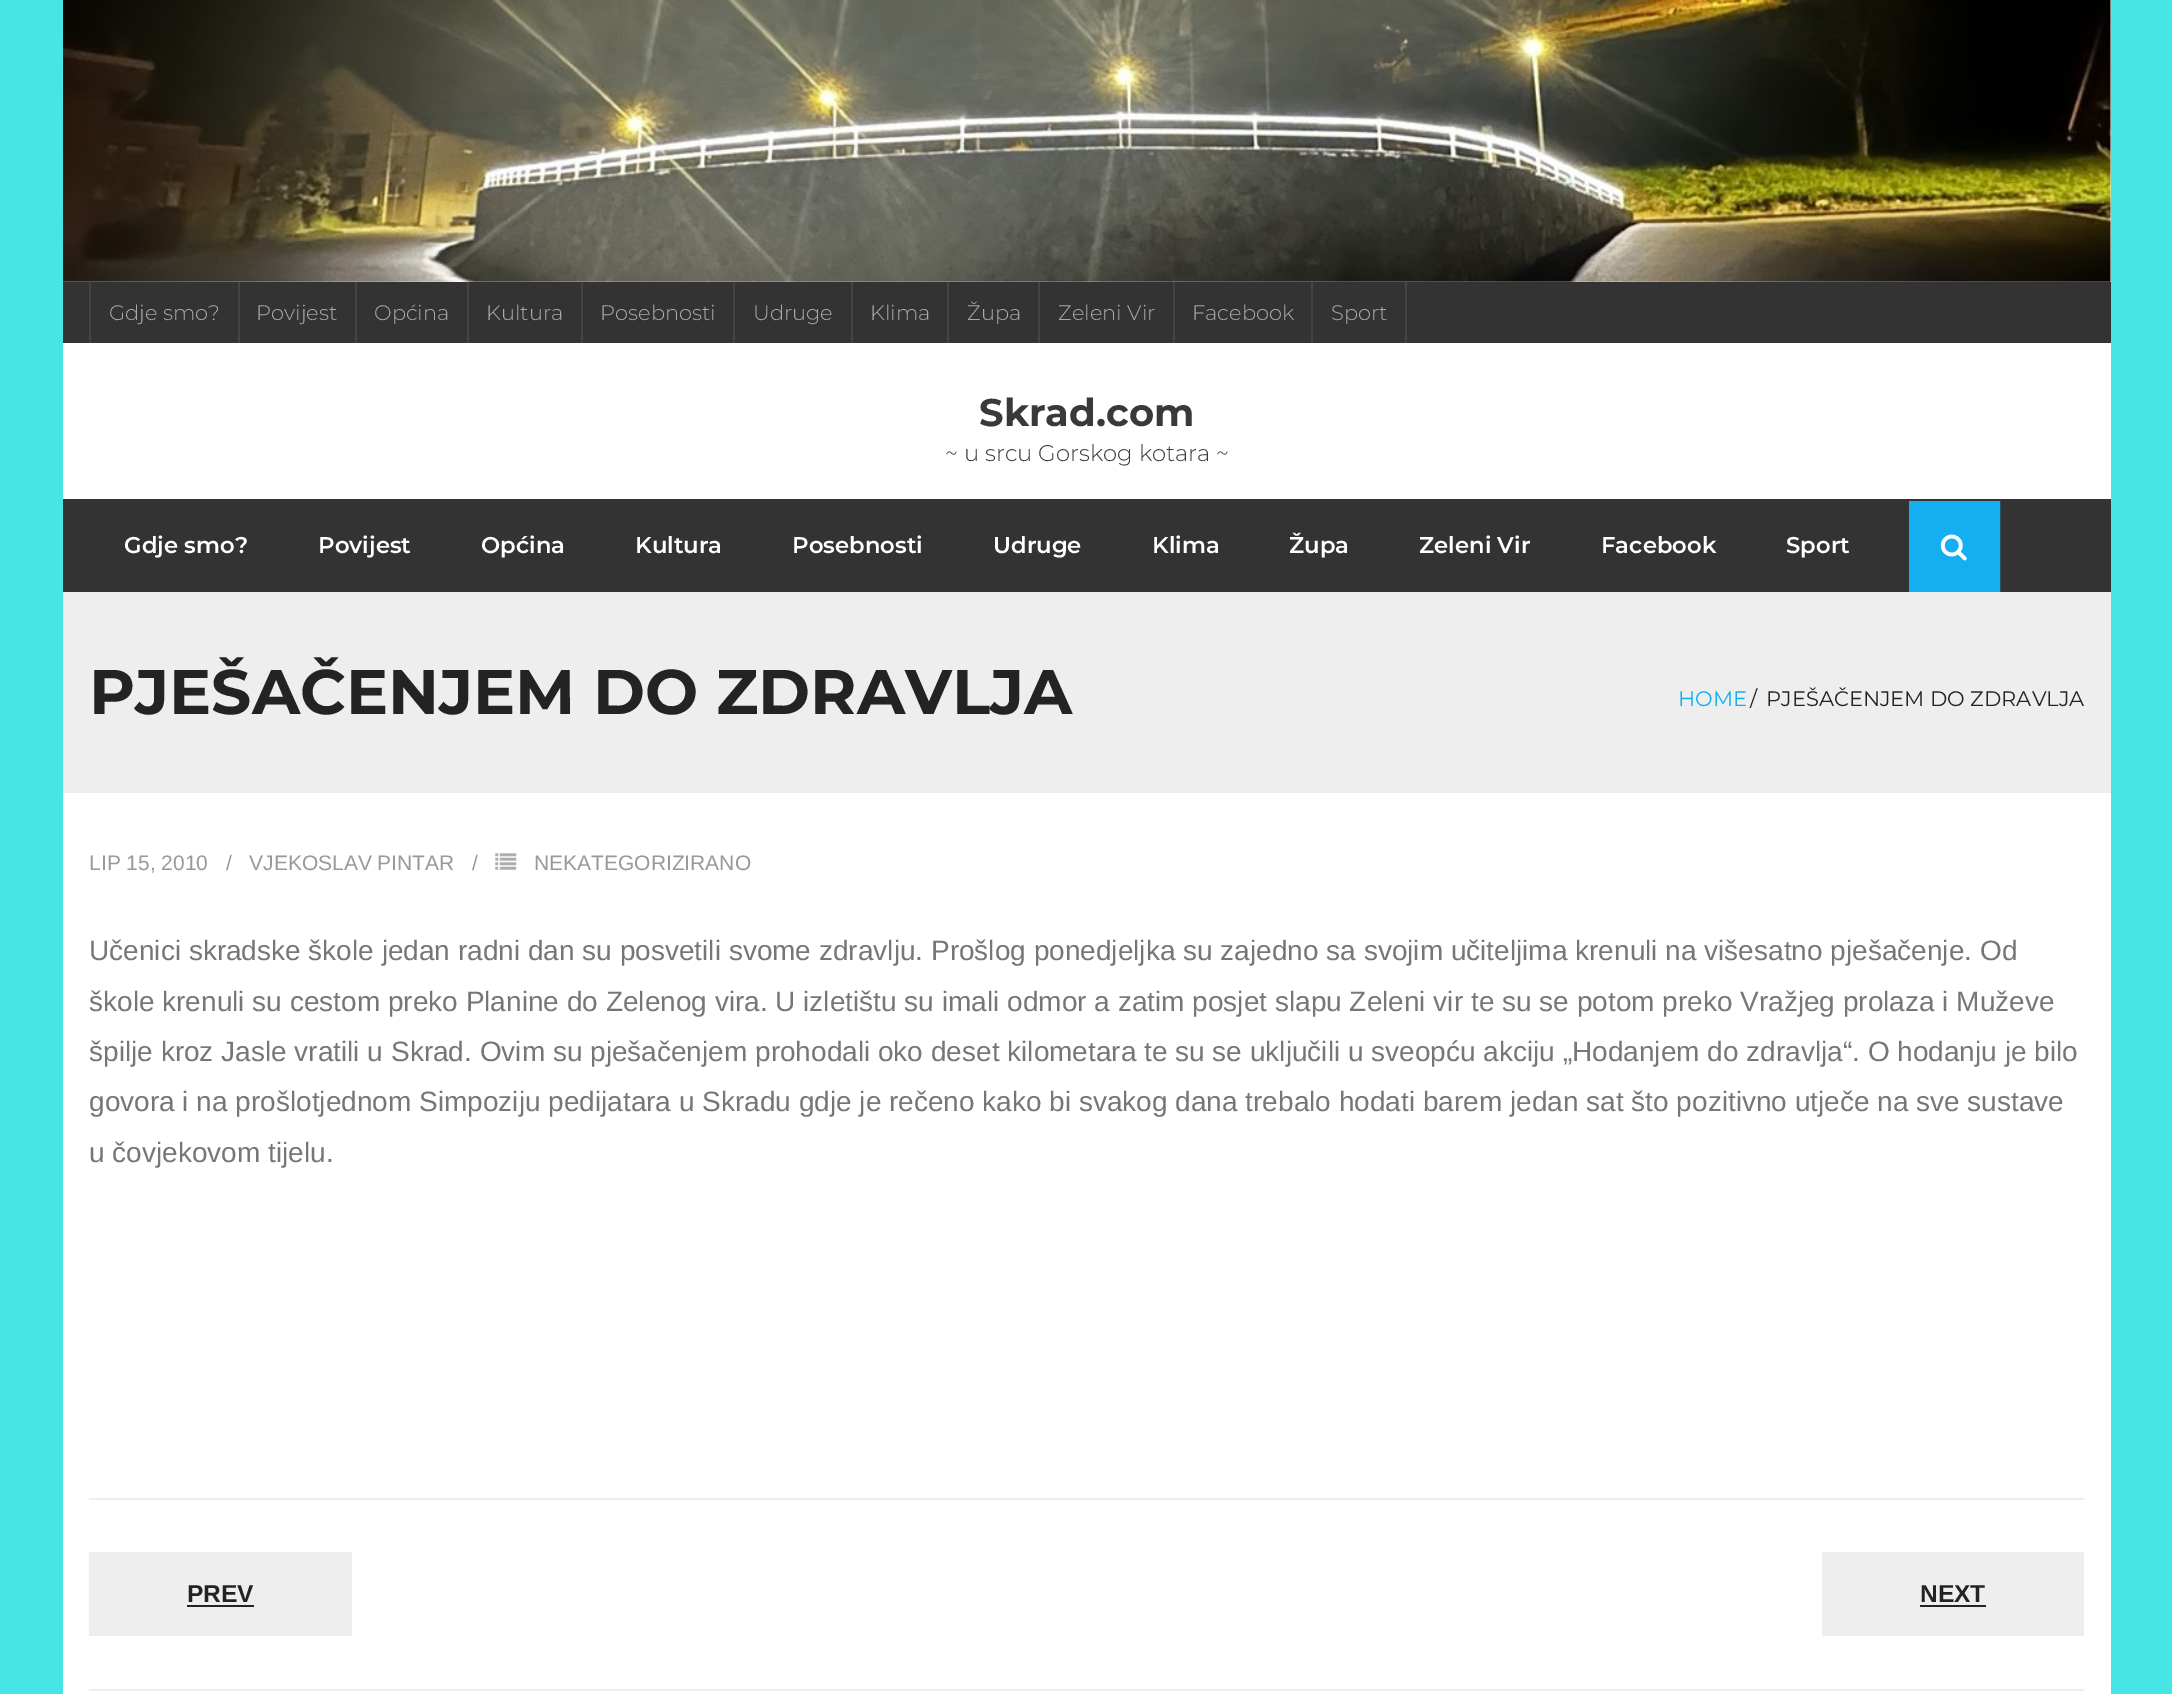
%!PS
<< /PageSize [2172 1694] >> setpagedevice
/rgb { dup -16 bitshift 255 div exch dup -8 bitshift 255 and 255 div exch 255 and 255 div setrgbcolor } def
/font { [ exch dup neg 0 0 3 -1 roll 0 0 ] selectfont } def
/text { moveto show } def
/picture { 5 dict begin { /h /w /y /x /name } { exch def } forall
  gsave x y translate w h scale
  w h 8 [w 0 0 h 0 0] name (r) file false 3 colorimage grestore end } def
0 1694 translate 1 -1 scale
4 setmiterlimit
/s1 { /Montserrat-Light 21 font 16#AAAAAA rgb } def
/s2 { /Montserrat-Bold 38.5 font 16#3A3939 rgb } def
/s3 { /Montserrat-Light 22.75 font 16#3A3939 rgb } def
/s4 { /Montserrat-SemiBold 22.75 font 16#FFFFFF rgb } def
/s5 { /Montserrat-Bold 63 font 16#232323 rgb } def
/s6 { /Montserrat-Regular 21 font 16#13AFF0 rgb } def
/s7 { /Montserrat-Regular 21 font 16#232323 rgb } def
/s8 { /LiberationSans-Regular 21 font 16#999999 rgb } def
/s9 { /LiberationSans-Regular 28 font 16#767676 rgb } def
/s10 { /LiberationSans-Bold 24.5 font 16#232323 rgb } def
16#47E5E5 rgb
0 0 2172 1694 rectfill
16#FFFFFF rgb
63 0 2048 1694 rectfill
(pic1.raw) 63 0 2048 282 picture
16#333333 rgb
63 282 2048 61 rectfill
16#444444 rgb
238 282 2 61 rectfill
89 282 2 61 rectfill
s1
(Gdje smo?) 109 320 text
16#444444 rgb
355 282 2 61 rectfill
s1
(Povijest) 256 320 text
16#444444 rgb
467 282 2 61 rectfill
s1
(Općina) 374 320 text
16#444444 rgb
581 282 2 61 rectfill
s1
(Kultura) 486 320 text
16#444444 rgb
733 282 2 61 rectfill
s1
(Posebnosti) 600 320 text
16#444444 rgb
851 282 2 61 rectfill
s1
(Udruge) 753 320 text
16#444444 rgb
947 282 2 61 rectfill
s1
(Klima) 870 320 text
16#444444 rgb
1038 282 2 61 rectfill
s1
(Župa) 967 320 text
16#444444 rgb
1173 282 2 61 rectfill
s1
(Zeleni Vir) 1058 320 text
16#444444 rgb
1311 282 2 61 rectfill
s1
(Facebook) 1192 320 text
16#444444 rgb
1405 282 2 61 rectfill
s1
(Sport) 1331 320 text
s2
(Skrad.com) 979 426 text
s3
(~ u srcu Gorskog kotara ~) 945 461 text
16#333333 rgb
63 499 2048 93 rectfill
s4
(Gdje smo?) 124 553 text
(Povijest) 318 553 text
(Općina) 481 553 text
(Kultura) 635 553 text
(Posebnosti) 792 553 text
(Udruge) 993 553 text
(Klima) 1152 553 text
(Župa) 1289 553 text
(Zeleni Vir) 1419 553 text
(Facebook) 1601 553 text
(Sport) 1786 553 text
16#13AFF0 rgb
2 setlinewidth
1910 502 89 89 rectstroke
1911 503 87 87 rectfill
(pic2.raw) 1940 534 27 27 picture
16#EEEEEE rgb
63 592 2048 201 rectfill
s5
(PJEŠAČENJEM DO ZDRAVLJA) 89 714 text
s6
(HOME) 1678 706 text
s7
(/) 1750 706 text
(PJEŠAČENJEM DO ZDRAVLJA) 1766 706 text
s8
(LIP 15, 2010) 89 870 text
(/) 226 870 text
(VJEKOSLAV PINTAR) 249 870 text
(/) 472 870 text
(pic3.raw) 495 853 22 17 picture
(NEKATEGORIZIRANO) 534 870 text
s9
(Učenici skradske škole jedan radni dan su posvetili svome zdravlju. Prošlog ponedjeljka su zajedno sa svojim učiteljima krenuli na višesatno pješačenje. Od) 89 960 text
(škole krenuli su cestom preko Planine do Zelenog vira. U izletištu su imali odmor a zatim posjet slapu Zeleni vir te su se potom preko Vražjeg prolaza i Muževe) 89 1011 text
(špilje kroz Jasle vratili u Skrad. Ovim su pješačenjem prohodali oko deset kilometara te su se uključili u sveopću akciju „Hodanjem do zdravlja“. O hodanju je bilo) 89 1061 text
(govora i na prošlotjednom Simpoziju pedijatara u Skradu gdje je rečeno kako bi svakog dana trebalo hodati barem jedan sat što pozitivno utječe na sve sustave) 89 1111 text
(u čovjekovom tijelu.) 89 1162 text
16#EEEEEE rgb
89 1498 1995 2 rectfill
89 1689 1995 2 rectfill
89 1552 263 84 rectfill
s10
(PREV) 187 1602 text
187 1605 67 2 rectfill
16#EEEEEE rgb
1822 1552 262 84 rectfill
s10
(NEXT) 1920 1602 text
1920 1605 66 2 rectfill
showpage
